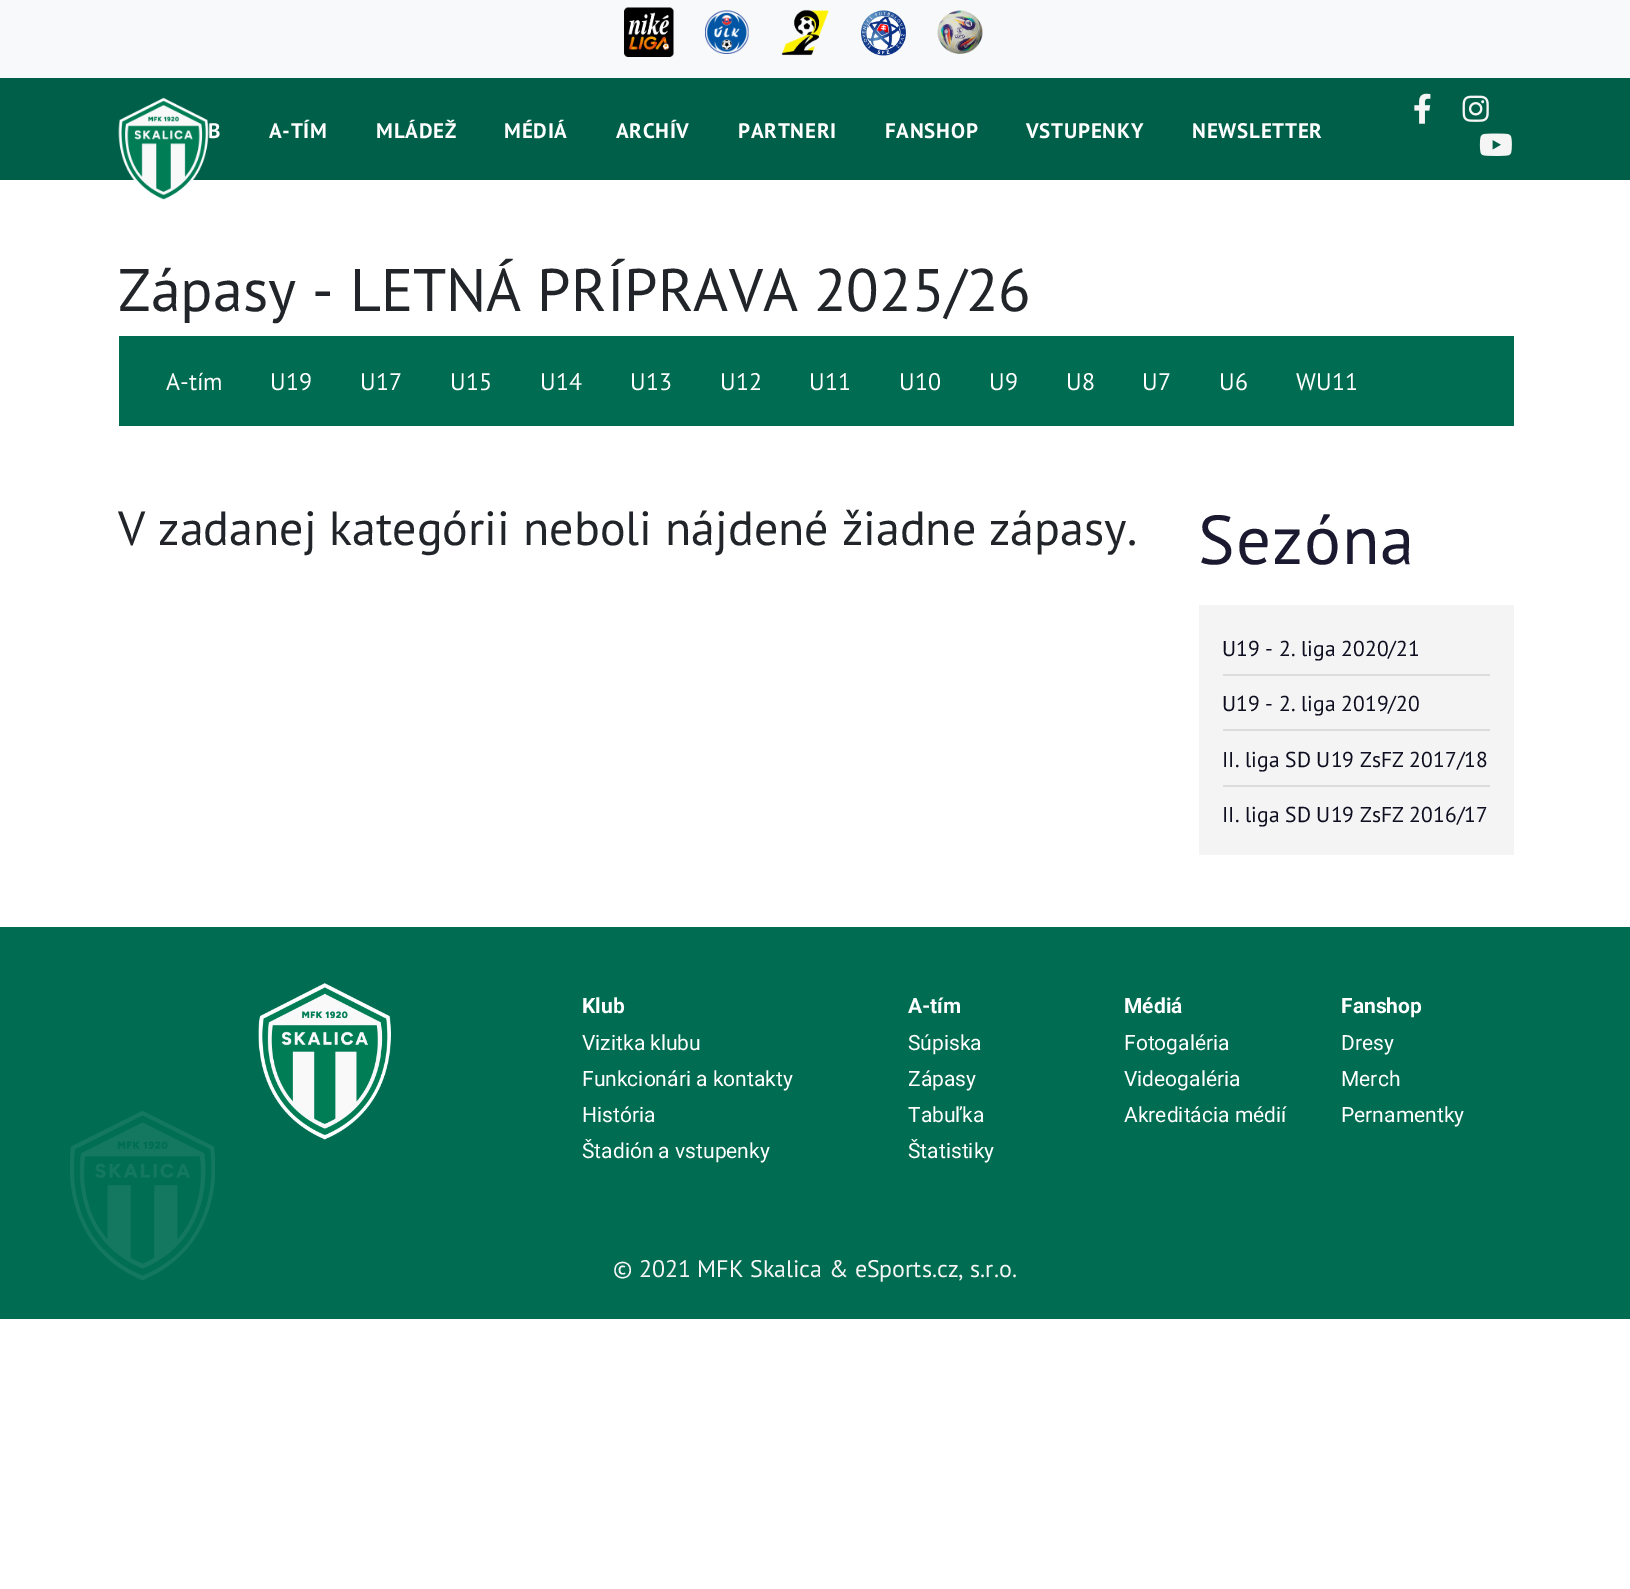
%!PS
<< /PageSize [1630 1589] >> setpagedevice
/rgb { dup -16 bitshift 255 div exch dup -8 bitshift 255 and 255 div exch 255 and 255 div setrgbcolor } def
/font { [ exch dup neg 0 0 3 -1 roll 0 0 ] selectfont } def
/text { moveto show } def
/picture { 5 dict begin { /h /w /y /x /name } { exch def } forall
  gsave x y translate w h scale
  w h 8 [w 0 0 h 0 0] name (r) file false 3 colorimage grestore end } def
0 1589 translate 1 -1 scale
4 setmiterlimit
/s1 { /PTSans-Regular 60 font 16#212529 rgb } def
/s2 { /PTSans-Regular 24 font 16#FFFFFF rgb } def
/s3 { /PTSans-Regular 48 font 16#212529 rgb } def
/s4 { /PTSans-Regular 21.6 font 16#0E0E20 rgb } def
/s5 { /Roboto-Bold 21 font 16#FFFFFF rgb } def
/s6 { /Roboto-Regular 21 font 16#FFFFFF rgb } def
/s7 { /PTSans-Regular 24 font 16#F5F5F5 rgb } def
16#FFFFFF rgb
0 0 1630 1589 rectfill
16#005F48 rgb
0 78 1630 102 rectfill
16#F8F9FA rgb
0 0 1630 78 rectfill
(pic1.raw) 624 7 50 50 picture
(pic2.raw) 705 10 44 44 picture
(pic3.raw) 781 9 48 47 picture
(pic4.raw) 861 10 45 46 picture
(pic5.raw) 937 10 46 44 picture
/PTSans-Bold 21 font
16#FFFFFF rgb
208 138 moveto 0.75 0 (B) ashow
(pic6.raw) 118 97 91 103 picture
269 138 moveto 0.75 0 (A-TÍM) ashow
376 138 moveto 0.75 0 (MLÁDEŽ) ashow
504 138 moveto 0.75 0 (MÉDIÁ) ashow
616 138 moveto 0.75 0 (ARCHÍV) ashow
738 138 moveto 0.75 0 (PARTNERI) ashow
885 138 moveto 0.75 0 (FANSHOP) ashow
1026 138 moveto 0.75 0 (VSTUPENKY) ashow
1192 138 moveto 0.75 0 (NEWSLETTER) ashow
(pic7.raw) 1414 93 17 31 picture
(pic8.raw) 1462 95 27 27 picture
(pic9.raw) 1479 133 33 23 picture
s1
(Zápasy - LETNÁ PRÍPRAVA 2025/26) 118 311 text
16#006D52 rgb
119 336 1395 90 rectfill
s2
(A-tím) 166 390 text
(U19) 270 390 text
(U17) 360 390 text
(U15) 450 390 text
(U14) 540 390 text
(U13) 630 390 text
(U12) 720 390 text
(U11) 809 390 text
(U10) 899 390 text
(U9) 989 390 text
(U8) 1066 390 text
(U7) 1142 390 text
(U6) 1219 390 text
(WU11) 1296 390 text
s3
(V zadanej kategórii neboli nájdené žiadne zápasy.) 118 545 text
/PTSans-Regular 69 font
16#1A1930 rgb
1198 564 moveto 1 0 (Sezóna) ashow
16#F4F4F4 rgb
1199 605 315 250 rectfill
s4
(U19 - 2. liga 2020/21) 1222 656 text
16#DCDCDC rgb
1223 674 267 2 rectfill
s4
(U19 - 2. liga 2019/20) 1222 711 text
16#DCDCDC rgb
1223 729 267 2 rectfill
s4
(II. liga SD U19 ZsFZ 2017/18) 1222 767 text
16#DCDCDC rgb
1223 785 267 2 rectfill
s4
(II. liga SD U19 ZsFZ 2016/17) 1222 822 text
16#006D52 rgb
0 927 1630 392 rectfill
(pic10.raw) 70 1111 145 169 picture
(pic11.raw) 258 983 133 157 picture
s5
(Klub) 582 1013 text
s6
(Vizitka klubu) 582 1050 text
(Funkcionári a kontakty) 582 1086 text
(História) 582 1122 text
(Štadión a vstupenky) 582 1158 text
s5
(A-tím) 908 1013 text
s6
(Súpiska) 908 1050 text
(Zápasy) 908 1086 text
(Tabuľka) 908 1122 text
(Štatistiky) 908 1158 text
s5
(Médiá) 1124 1013 text
s6
(Fotogaléria) 1124 1050 text
(Videogaléria) 1124 1086 text
(Akreditácia médií) 1124 1122 text
s5
(Fanshop) 1341 1013 text
s6
(Dresy) 1341 1050 text
(Merch) 1341 1086 text
(Pernamentky) 1341 1122 text
s7
(© 2021 MFK Skalica & eSports.cz, s.r.o.) 613 1277 text
showpage
